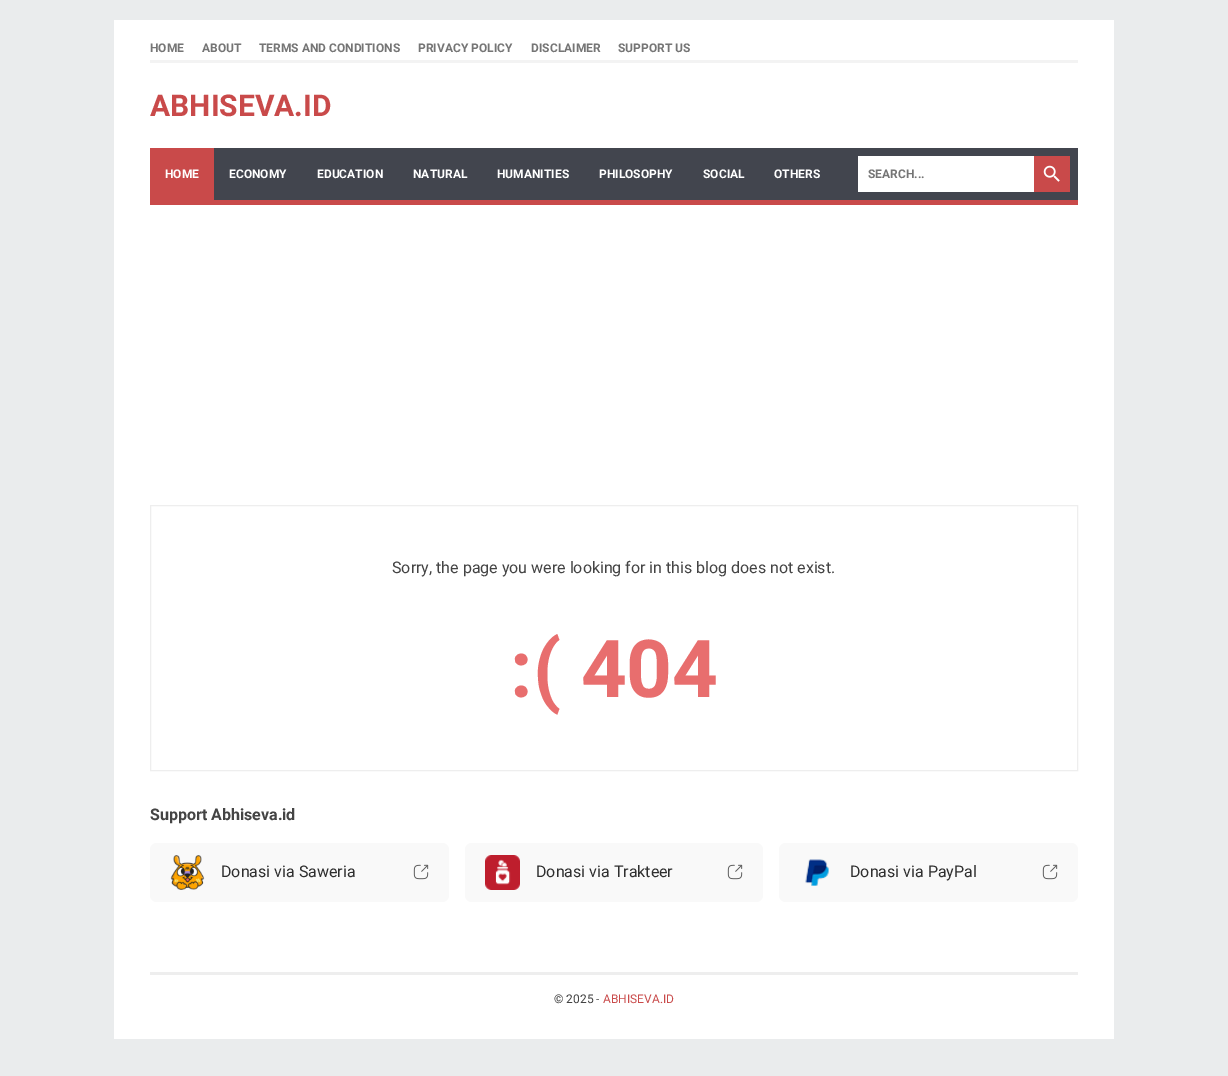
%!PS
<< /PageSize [1228 1076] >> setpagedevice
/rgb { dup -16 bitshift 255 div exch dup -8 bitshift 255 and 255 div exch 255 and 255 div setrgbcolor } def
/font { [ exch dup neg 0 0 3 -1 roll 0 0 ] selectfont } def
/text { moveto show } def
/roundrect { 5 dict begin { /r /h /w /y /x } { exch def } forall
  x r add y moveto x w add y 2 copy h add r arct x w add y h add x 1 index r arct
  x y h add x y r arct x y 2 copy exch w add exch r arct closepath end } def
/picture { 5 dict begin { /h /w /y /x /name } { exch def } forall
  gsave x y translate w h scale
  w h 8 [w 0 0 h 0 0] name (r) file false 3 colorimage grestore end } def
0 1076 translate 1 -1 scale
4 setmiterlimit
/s1 { /Roboto-Bold 12 font 16#757575 rgb } def
/s2 { /Roboto-Bold 30 font 16#C94A4A rgb } def
/s3 { /Roboto-Bold 12 font 16#FFFFFF rgb } def
/s4 { /Roboto-Regular 16 font 16#444444 rgb } def
/s5 { /Roboto-Bold 80 font 16#E86E6E rgb } def
/s6 { /Roboto-Bold 16 font 16#444444 rgb } def
/s7 { /Roboto-Regular 16 font 16#2F2F2F rgb } def
/s8 { /Roboto-Regular 12 font 16#444444 rgb } def
/s9 { /Roboto-Regular 12 font 16#C94A4A rgb } def
16#EAECED rgb
0 0 1228 1076 rectfill
16#FFFFFF rgb
114 20 1000 1019 rectfill
16#F3F3F3 rgb
150 60 928 3 rectfill
s1
(HOME) 150 52 text
(ABOUT) 202 52 text
(TERMS AND CONDITIONS) 259 52 text
(PRIVACY POLICY) 418 52 text
(DISCLAIMER) 531 52 text
(SUPPORT US) 618 52 text
s2
(ABHISEVA.ID) 150 116 text
16#42454E rgb
214 148 864 52 rectfill
16#C94A4A rgb
150 148 64 52 rectfill
s3
(HOME) 165 178 text
(ECONOMY) 229 178 text
(EDUCATION) 317 178 text
(NATURAL) 413 178 text
(HUMANITIES) 497 178 text
(PHILOSOPHY) 599 178 text
(SOCIAL) 703 178 text
(OTHERS) 774 178 text
858 156 176 36 rectfill
s1
(SEARCH...) 868 178 text
16#C94A4A rgb
1034 156 36 36 rectfill
(pic1.raw) 1043 165 17 17 picture
150 200 928 5 rectfill
16#EEEEEE rgb
150.5 505.5 927 265 rectstroke
s4
(Sorry, the page you were looking for in this blog does not exist.) 392 573 text
s5
(:\( 404) 510 697 text
s6
(Support Abhiseva.id) 150 820 text
16#F9F9F9 rgb
150 843 299 59 7 roundrect fill
(pic2.raw) 170 855 35 35 picture
s7
(Donasi via Saweria) 221 877 text
(pic3.raw) 413 864 16 16 picture
16#F9F9F9 rgb
465 843 298 59 7 roundrect fill
(pic4.raw) 485 855 35 35 picture
s7
(Donasi via Trakteer) 536 877 text
(pic3.raw) 727 864 16 16 picture
16#F9F9F9 rgb
779 843 299 59 7 roundrect fill
(pic5.raw) 805 859 24 27 picture
s7
(Donasi via PayPal) 850 877 text
(pic3.raw) 1042 864 16 16 picture
16#EEEEEE rgb
150 972 928 3 rectfill
s8
(© 2025 -) 554 1003 text
s9
(ABHISEVA.ID) 603 1003 text
showpage
